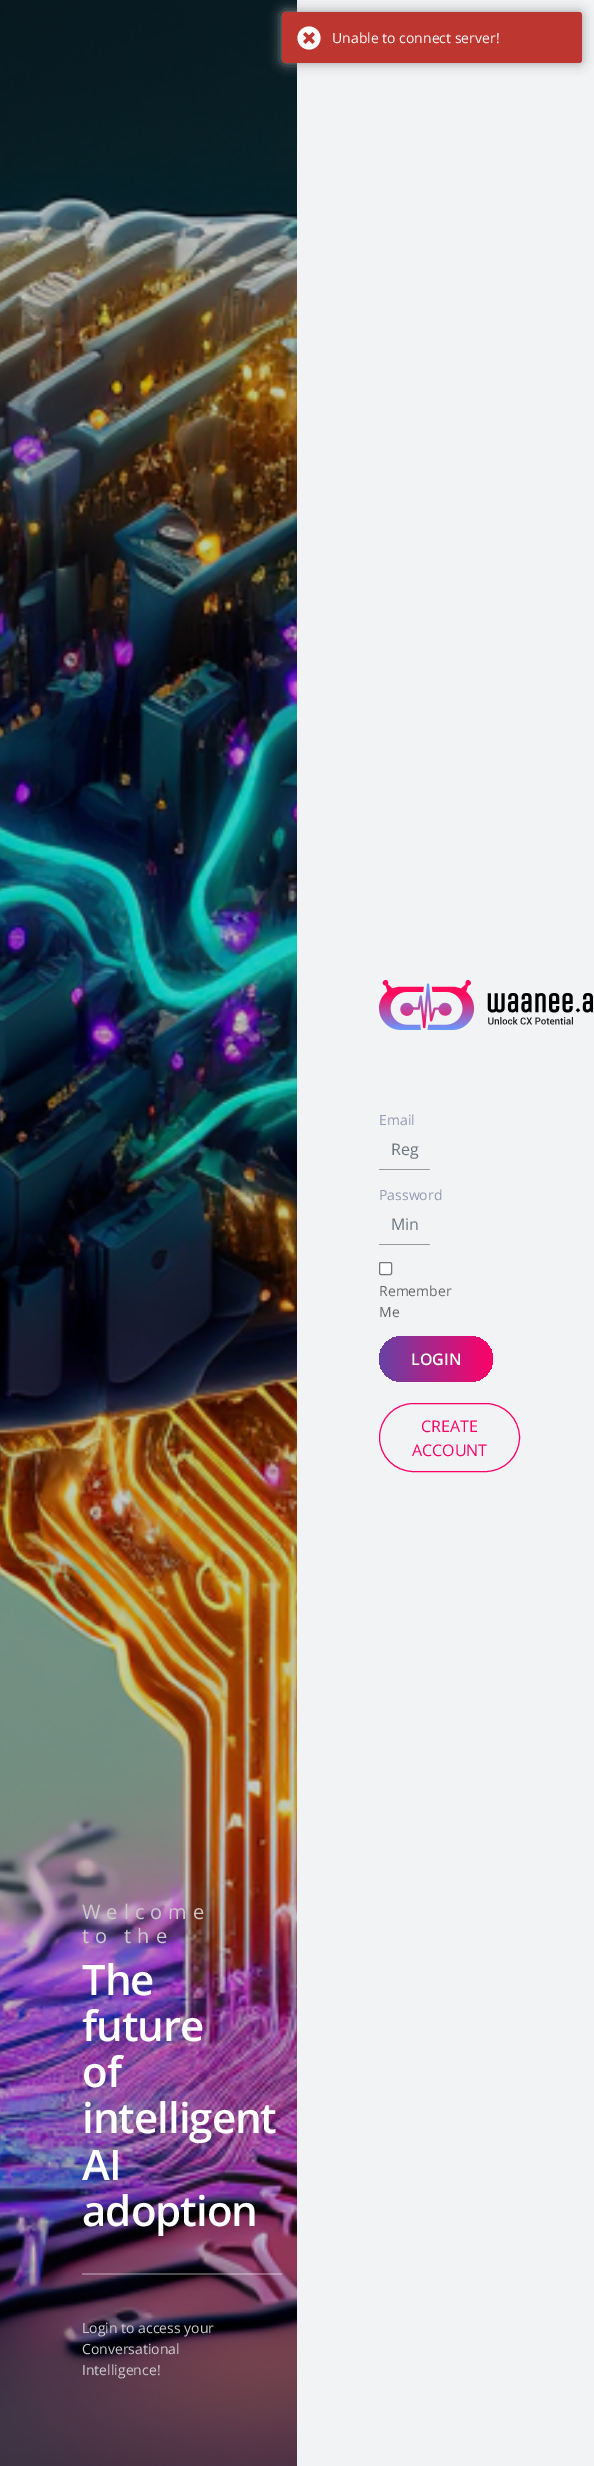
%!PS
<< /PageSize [594 2466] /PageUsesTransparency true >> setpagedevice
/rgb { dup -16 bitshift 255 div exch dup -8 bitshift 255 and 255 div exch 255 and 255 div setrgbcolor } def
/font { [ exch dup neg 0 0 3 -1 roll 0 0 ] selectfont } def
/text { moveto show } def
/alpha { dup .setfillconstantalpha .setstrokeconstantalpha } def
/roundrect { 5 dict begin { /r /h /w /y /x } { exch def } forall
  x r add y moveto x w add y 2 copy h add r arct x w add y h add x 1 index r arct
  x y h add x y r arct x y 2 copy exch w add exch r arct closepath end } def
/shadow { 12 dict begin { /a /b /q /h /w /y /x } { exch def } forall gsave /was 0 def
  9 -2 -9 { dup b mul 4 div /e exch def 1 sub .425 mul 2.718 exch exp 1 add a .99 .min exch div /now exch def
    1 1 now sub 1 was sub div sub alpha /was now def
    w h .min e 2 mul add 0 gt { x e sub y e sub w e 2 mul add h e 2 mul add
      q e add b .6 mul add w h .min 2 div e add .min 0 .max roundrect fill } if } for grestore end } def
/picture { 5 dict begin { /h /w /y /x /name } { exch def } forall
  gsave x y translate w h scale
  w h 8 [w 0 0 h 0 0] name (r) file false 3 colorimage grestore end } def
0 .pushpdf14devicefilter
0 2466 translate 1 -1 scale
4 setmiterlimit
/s1 { /OpenSans-Regular 14 font 16#FFFFFF rgb } def
/s2 { /OpenSans-Regular 14 font 16#9597B3 rgb } def
/s3 { /OpenSans-Regular 16 font 16#6C757D rgb } def
/s4 { /OpenSans-Regular 14 font 16#666666 rgb } def
/s5 { /OpenSans-SemiBold 16 font 16#FFFFFF rgb } def
/s6 { /OpenSans-Regular 16 font 16#FE0168 rgb } def
/s7 { /OpenSans-Regular 14 font 16#CCCCCC rgb } def
16#F1F3F5 rgb
0 0 594 2466 rectfill
(pic3.raw) 0 0 297 2466 picture
16#999999 rgb
282 12 300 51 3 6 1 shadow
16#BD362F rgb
282 12 300 51 3 roundrect fill
(pic1.raw) 297 26 24 24 picture
s1
(Unable to connect server!) 332 43 text
(pic2.raw) 379 980 214 50 picture
s2
(Email) 379 1125 text
16#999999 rgb
379 1169 51 1 rectfill
s3
(Reg) 391 1155 text
s2
(Password) 379 1200 text
16#999999 rgb
379 1244 51 1 rectfill
s3
(Min) 391 1230 text
16#FFFFFF rgb
379.5 1262.5 12 12 1.5 roundrect gsave fill grestore
16#767676 rgb
stroke
s4
(Remember) 379 1296 text
(Me) 379 1317 text
gsave 379 1336 114 46 23 roundrect clip newpath
<< /ShadingType 2 /ColorSpace /DeviceRGB /Coords [493 1359 379 1359] /Extend [true true] /Function << /FunctionType 2 /Domain [0 1] /C0 [0.996 0.004 0.408] /C1 [0.4 0.259 0.647] /N 1 >> >> shfill grestore
s5
(LOGIN) 411 1365 text
16#FE0168 rgb
379.5 1403.5 140 68 34 roundrect stroke
s6
(CREATE) 421 1432 text
(ACCOUNT) 412 1456 text
/OpenSans-Regular 20 font
16#CCCCCC rgb
82 1919 moveto 6 0 (Welcome) ashow
82 1943 moveto 6 0 (to the) ashow
/OpenSans-SemiBold 42 font
16#FFFFFF rgb
82 1995 moveto -1 0 (The) ashow
82 2041 moveto -1 0 (future) ashow
82 2087 moveto -1 0 (of) ashow
82 2133 moveto -1 0 (intelligent) ashow
82 2180 moveto -1 0 (AI) ashow
82 2226 moveto -1 0 (adoption) ashow
0.3 alpha
82 2273 200 2 rectfill
1 alpha
s7
(Login to access your) 82 2333 text
(Conversational) 82 2354 text
(Intelligence!) 82 2375 text
.poppdf14devicefilter showpage
